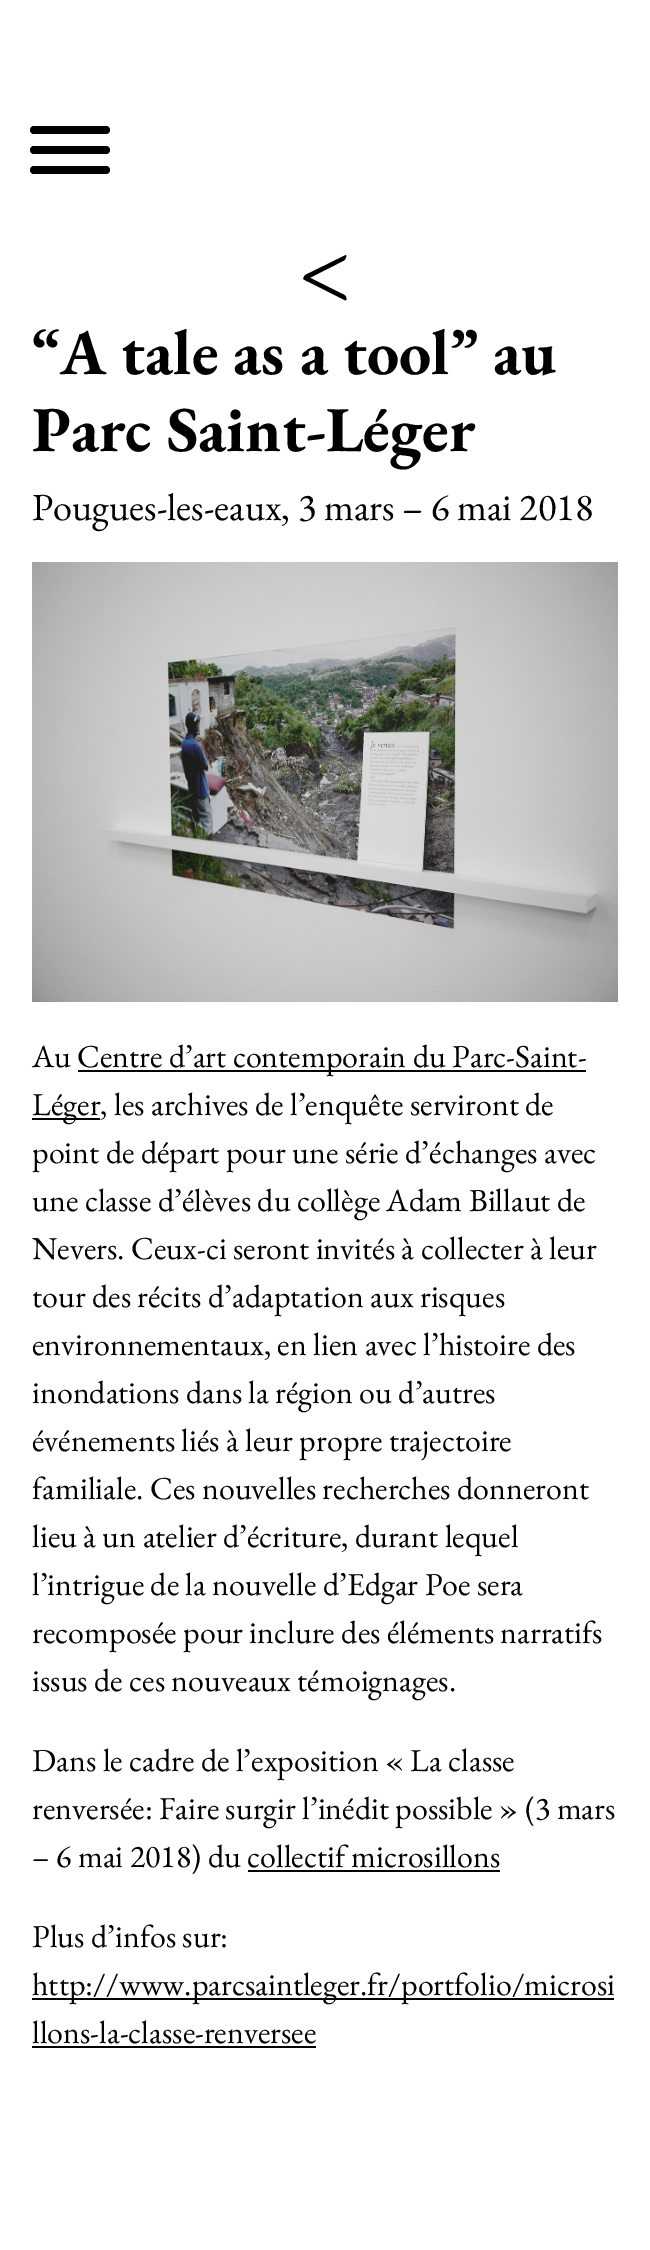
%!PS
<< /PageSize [650 2250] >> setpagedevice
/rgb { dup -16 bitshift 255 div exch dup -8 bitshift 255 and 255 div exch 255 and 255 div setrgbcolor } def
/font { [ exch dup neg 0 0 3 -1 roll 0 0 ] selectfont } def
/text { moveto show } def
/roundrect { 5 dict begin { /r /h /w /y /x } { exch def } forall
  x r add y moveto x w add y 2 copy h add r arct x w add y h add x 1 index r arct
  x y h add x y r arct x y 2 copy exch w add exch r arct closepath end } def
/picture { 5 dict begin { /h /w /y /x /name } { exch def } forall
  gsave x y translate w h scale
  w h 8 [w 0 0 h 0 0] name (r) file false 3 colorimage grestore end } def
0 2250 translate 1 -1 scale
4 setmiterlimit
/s1 { /EBGaramond-Regular 96 font 16#000000 rgb } def
/s2 { /EBGaramond-Bold 64 font 16#000000 rgb } def
/s3 { /EBGaramond-Regular 38.4 font 16#000000 rgb } def
/s4 { /EBGaramond-Regular 32 font 16#000000 rgb } def
16#FFFFFF rgb
0 0 650 2250 rectfill
16#000000 rgb
30 146 80 8 4 roundrect fill
30 126 80 8 4 roundrect fill
30 166 80 8 4 roundrect fill
s1
(<) 298 300 text
s2
(“A tale as a tool” au) 32 374 text
(Parc Saint-Léger) 32 451 text
s3
(Pougues-les-eaux, 3 mars – 6 mai 2018) 32 520 text
(pic1.raw) 32 562 586 440 picture
s4
(Au) 32 1067 text
78 1070 508 2 rectfill
(Centre d’art contemporain du Parc-Saint-) 77 1067 text
32 1118 68 2 rectfill
(Léger, les archives de l’enquête serviront de) 32 1115 text
(point de départ pour une série d’échanges avec) 32 1163 text
(une classe d’élèves du collège Adam Billaut de) 32 1211 text
(Nevers. Ceux-ci seront invités à collecter à leur) 32 1259 text
(tour des récits d’adaptation aux risques) 32 1307 text
(environnementaux, en lien avec l’histoire des) 32 1355 text
(inondations dans la région ou d’autres) 32 1403 text
(événements liés à leur propre trajectoire) 32 1451 text
(familiale. Ces nouvelles recherches donneront) 32 1499 text
(lieu à un atelier d’écriture, durant lequel) 32 1547 text
(l’intrigue de la nouvelle d’Edgar Poe sera) 32 1595 text
(recomposée pour inclure des éléments narratifs) 32 1643 text
(issus de ces nouveaux témoignages.) 32 1691 text
(Dans le cadre de l’exposition « La classe) 32 1771 text
(renversée: Faire surgir l’inédit possible » \(3 mars) 32 1819 text
(– 6 mai 2018\) du collectif microsillons) 32 1867 text
248 1870 252 2 rectfill
(Plus d’infos sur:) 32 1947 text
32 1998 582 2 rectfill
(http://www.parcsaintleger.fr/portfolio/microsi) 32 1995 text
(llons-la-classe-renversee) 32 2043 text
32 2046 284 2 rectfill
showpage
